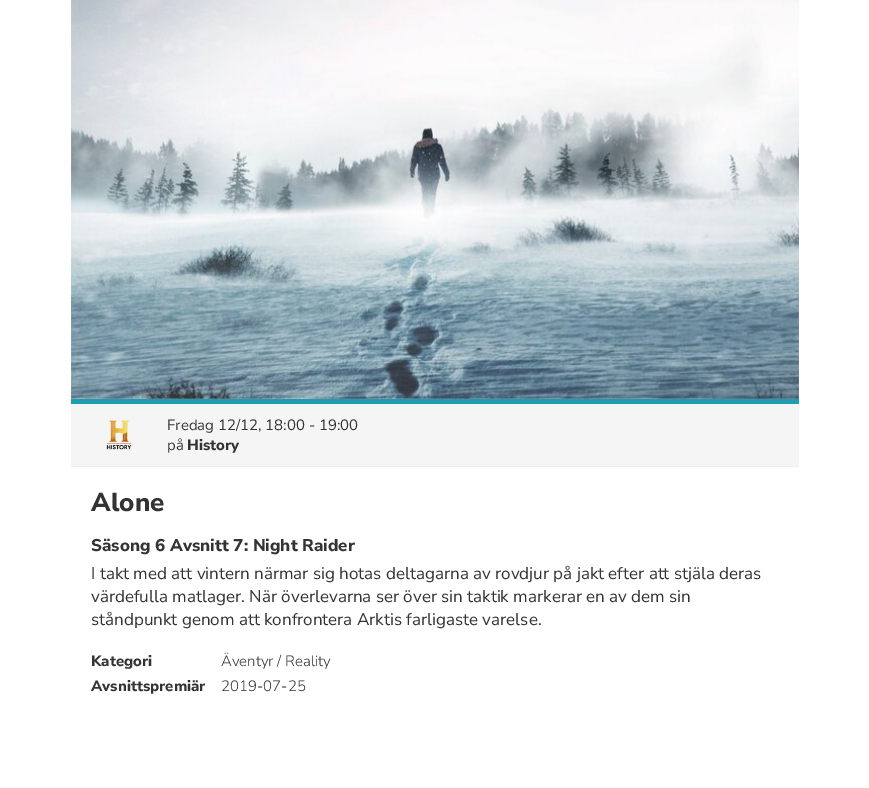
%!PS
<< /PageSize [869 788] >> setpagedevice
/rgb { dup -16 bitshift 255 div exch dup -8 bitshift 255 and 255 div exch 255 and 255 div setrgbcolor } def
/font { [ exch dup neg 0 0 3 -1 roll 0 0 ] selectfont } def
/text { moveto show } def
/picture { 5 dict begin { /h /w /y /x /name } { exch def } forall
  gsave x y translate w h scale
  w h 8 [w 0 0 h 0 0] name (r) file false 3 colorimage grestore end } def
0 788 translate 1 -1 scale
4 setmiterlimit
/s1 { /NunitoSans-Regular 15 font 16#333333 rgb } def
/s2 { /NunitoSans-ExtraBold 15 font 16#333333 rgb } def
/s3 { /NunitoSans-ExtraBold 26 font 16#333333 rgb } def
/s4 { /NunitoSans-ExtraBold 17 font 16#333333 rgb } def
/s5 { /NunitoSans-Regular 17 font 16#333333 rgb } def
/s6 { /NunitoSans-Light 15 font 16#333333 rgb } def
16#FFFFFF rgb
0 0 869 788 rectfill
(pic1.raw) 71 0 728 399 picture
16#F5F5F5 rgb
71 404 728 62 rectfill
16#209DB1 rgb
71 399 728 5 rectfill
16#EEEEEE rgb
71 466 728 1 rectfill
(pic2.raw) 106 420 26 30 picture
s1
(Fredag 12/12, 18:00 - 19:00) 167 430 text
(på) 167 450 text
s2
(History) 187 450 text
s3
(Alone) 91 511 text
s4
(Säsong 6 Avsnitt 7: Night Raider) 91 551 text
s5
(I takt med att vintern närmar sig hotas deltagarna av rovdjur på jakt efter att stjäla deras) 91 579 text
(värdefulla matlager. När överlevarna ser över sin taktik markerar en av dem sin) 91 602 text
(ståndpunkt genom att konfrontera Arktis farligaste varelse.) 91 625 text
s2
(Kategori) 91 666 text
s6
(Äventyr / Reality) 221 666 text
s2
(Avsnittspremiär) 91 691 text
s6
(2019-07-25) 221 691 text
showpage
